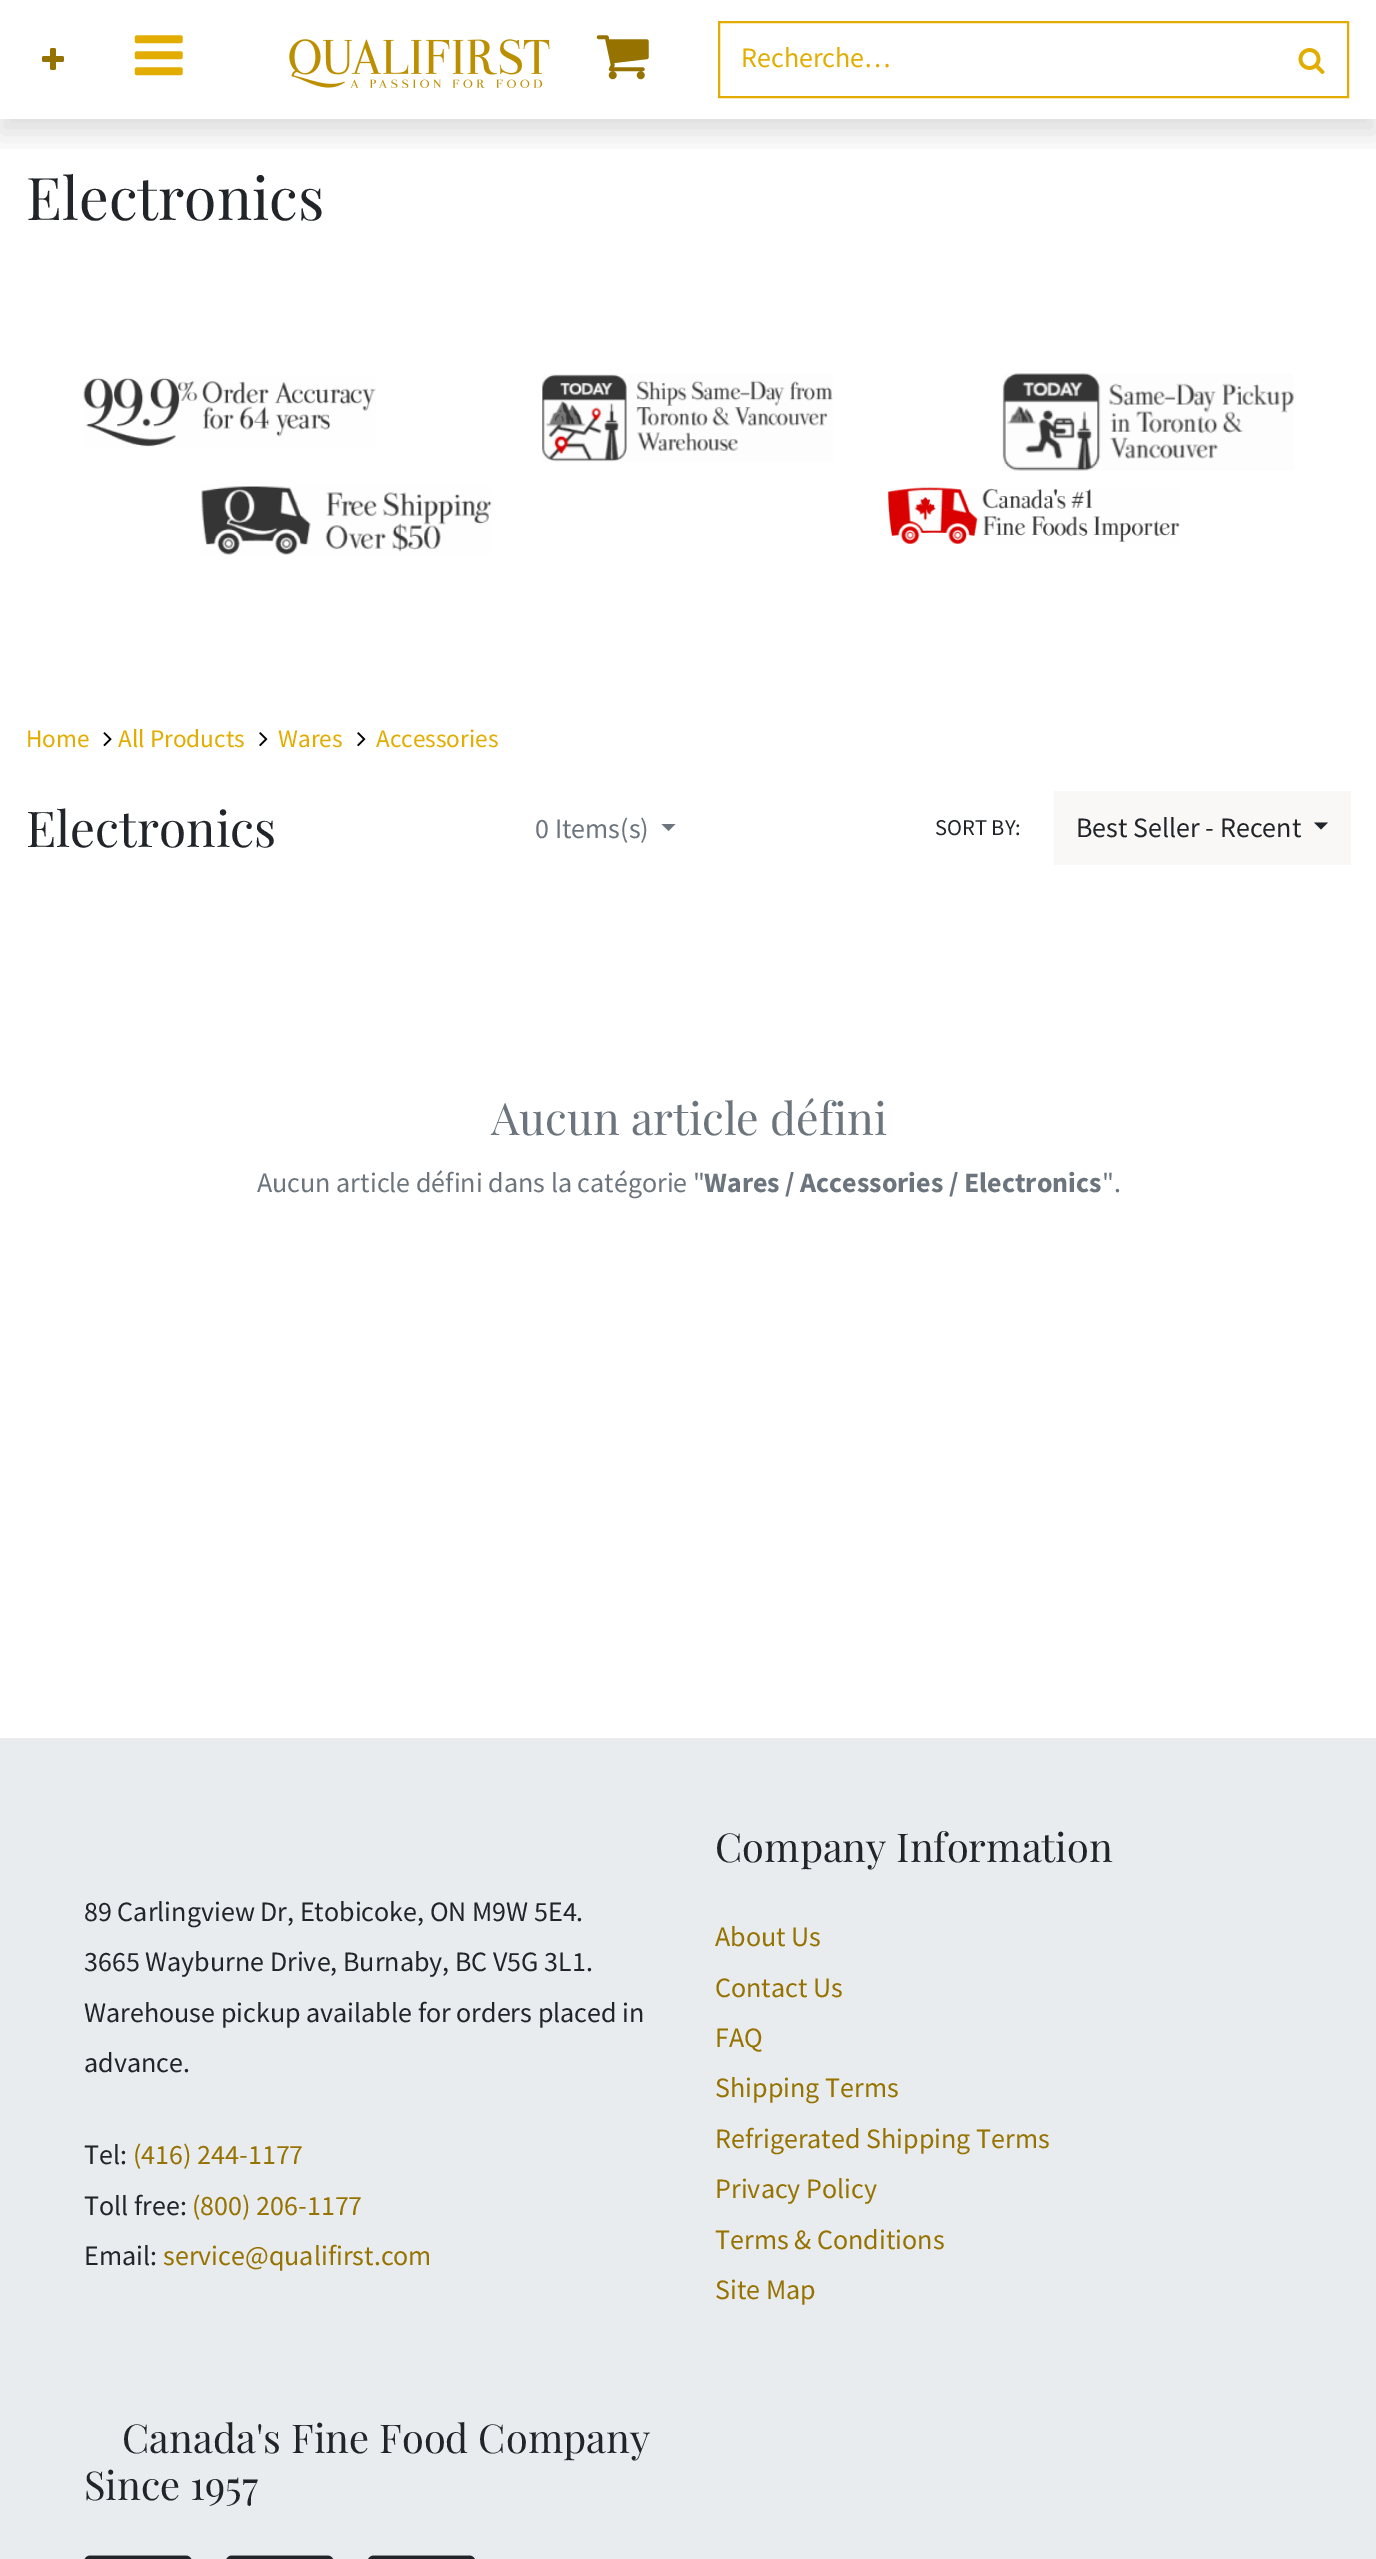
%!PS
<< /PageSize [1376 2559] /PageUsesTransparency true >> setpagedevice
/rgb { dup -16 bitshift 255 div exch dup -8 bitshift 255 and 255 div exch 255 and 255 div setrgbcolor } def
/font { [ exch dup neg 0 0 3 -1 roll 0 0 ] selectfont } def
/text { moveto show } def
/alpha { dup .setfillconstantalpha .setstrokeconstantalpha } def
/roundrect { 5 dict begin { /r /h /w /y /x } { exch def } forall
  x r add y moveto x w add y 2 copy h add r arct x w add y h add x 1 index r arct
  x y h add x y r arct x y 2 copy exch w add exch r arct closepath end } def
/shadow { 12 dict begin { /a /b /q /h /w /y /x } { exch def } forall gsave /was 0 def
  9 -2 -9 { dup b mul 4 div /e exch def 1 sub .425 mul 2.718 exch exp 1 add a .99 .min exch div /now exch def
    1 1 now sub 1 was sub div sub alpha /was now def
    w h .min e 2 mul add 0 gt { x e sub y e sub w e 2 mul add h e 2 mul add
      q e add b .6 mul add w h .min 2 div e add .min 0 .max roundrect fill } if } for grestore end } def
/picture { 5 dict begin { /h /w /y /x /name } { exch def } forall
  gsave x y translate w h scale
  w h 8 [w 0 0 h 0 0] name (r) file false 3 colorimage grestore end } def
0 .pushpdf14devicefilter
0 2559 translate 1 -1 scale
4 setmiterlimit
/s1 { /SourceSansPro-Regular 28 font 16#E2AD00 rgb } def
/s2 { /PlayfairDisplay-Regular 59 font 16#212529 rgb } def
/s3 { /SourceSansPro-Regular 25.25 font 16#E2AD00 rgb } def
/s4 { /PlayfairDisplay-Regular 49.5 font 16#212529 rgb } def
/s5 { /SourceSansPro-Regular 28 font 16#6C757D rgb } def
/s6 { /SourceSansPro-Regular 22.5 font 16#212529 rgb } def
/s7 { /SourceSansPro-Regular 28 font 16#212529 rgb } def
/s8 { /PlayfairDisplay-Regular 44.75 font 16#6C757D rgb } def
/s9 { /SourceSansPro-Bold 28 font 16#6C757D rgb } def
/s10 { /SourceSansPro-Regular 28 font 16#967200 rgb } def
/s11 { /PlayfairDisplay-Regular 39.8 font 16#212529 rgb } def
16#FFFFFF rgb
0 0 1376 2559 rectfill
gsave
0 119 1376 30 rectclip
16#222222 rgb
0 14 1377 119 0 14 0.15 shadow
grestore
(pic1.raw) 42 48 22 22 picture
(pic2.raw) 134 35 49 41 picture
(pic3.raw) 289 39 261 49 picture
(pic4.raw) 596 35 53 45 picture
16#E2AD00 rgb
2 setlinewidth
719 22 629 75 rectstroke
s1
(Recherche…) 741 67 text
(pic5.raw) 1298 48 27 26 picture
s2
(Electronics) 26 220 text
(pic6.raw) 83 377 293 70 picture
(pic7.raw) 542 374 291 88 picture
(pic8.raw) 1002 373 292 98 picture
(pic9.raw) 201 486 291 69 picture
(pic10.raw) 888 487 292 57 picture
s3
(Home) 26 747 text
(pic11.raw) 103 732 9 15 picture
(All Products) 118 747 text
(pic12.raw) 259 732 9 15 picture
(Wares) 278 747 text
(pic12.raw) 357 732 9 15 picture
(Accessories) 376 747 text
s4
(Electronics) 26 847 text
s5
(0 Items\(s\)) 535 838 text
661.5 824 moveto 675.5 824 lineto 668.5 831 lineto closepath fill
s6
(SORT BY:) 935 835 text
16#F9F8F6 rgb
1054 791 297 74 rectfill
s7
(Best Seller - Recent) 1076 837 text
1314 822.5 moveto 1328 822.5 lineto 1321 829.5 lineto closepath fill
s8
(Aucun article défini) 491 1135 text
s5
(Aucun article défini dans la catégorie ") 257 1192 text
s9
(Wares / Accessories / Electronics) 704 1192 text
s5
(".) 1102 1192 text
16#E9ECEF rgb
0 1738 1376 821 rectfill
s7
(89 Carlingview Dr, Etobicoke, ON M9W 5E4.) 84 1921 text
(3665 Wayburne Drive, Burnaby, BC V5G 3L1.) 84 1971 text
(Warehouse pickup available for orders placed in) 84 2022 text
(advance.) 84 2072 text
(Tel:) 84 2164 text
s10
(\(416\) 244-1177) 133 2164 text
s7
(Toll free:) 84 2215 text
s10
(\(800\) 206-1177) 192 2215 text
s7
(Email:) 84 2265 text
s10
(service@qualifirst.com) 163 2265 text
s11
(Company Information) 715 1862 text
s10
(About Us) 715 1946 text
(Contact Us) 715 1997 text
(FAQ) 715 2047 text
(Shipping Terms) 715 2097 text
(Refrigerated Shipping Terms) 715 2148 text
(Privacy Policy) 715 2198 text
(Terms & Conditions) 715 2249 text
(Site Map) 715 2299 text
s11
(Canada's Fine Food Company) 122 2453 text
(Since 1957) 84 2500 text
(pic13.raw) 84 2555 108 4 picture
(pic14.raw) 226 2555 108 4 picture
(pic15.raw) 368 2555 107 4 picture
.poppdf14devicefilter showpage
